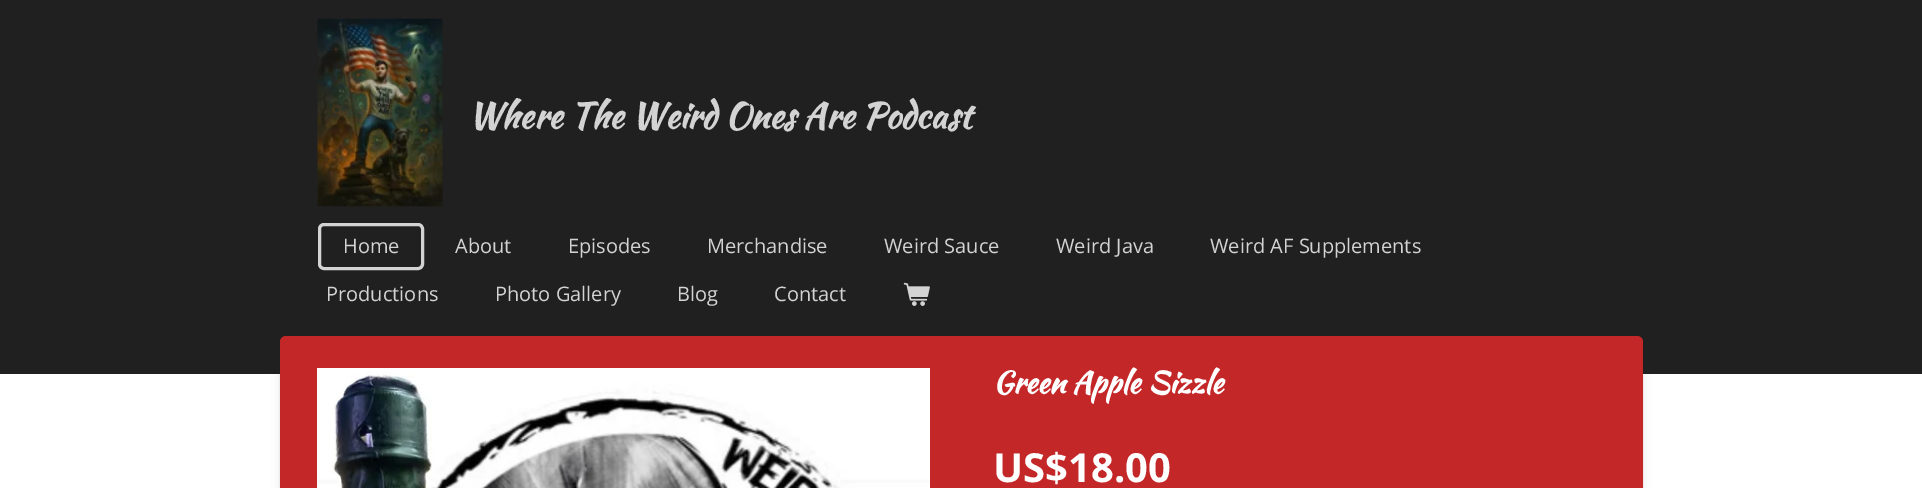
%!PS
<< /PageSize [1922 488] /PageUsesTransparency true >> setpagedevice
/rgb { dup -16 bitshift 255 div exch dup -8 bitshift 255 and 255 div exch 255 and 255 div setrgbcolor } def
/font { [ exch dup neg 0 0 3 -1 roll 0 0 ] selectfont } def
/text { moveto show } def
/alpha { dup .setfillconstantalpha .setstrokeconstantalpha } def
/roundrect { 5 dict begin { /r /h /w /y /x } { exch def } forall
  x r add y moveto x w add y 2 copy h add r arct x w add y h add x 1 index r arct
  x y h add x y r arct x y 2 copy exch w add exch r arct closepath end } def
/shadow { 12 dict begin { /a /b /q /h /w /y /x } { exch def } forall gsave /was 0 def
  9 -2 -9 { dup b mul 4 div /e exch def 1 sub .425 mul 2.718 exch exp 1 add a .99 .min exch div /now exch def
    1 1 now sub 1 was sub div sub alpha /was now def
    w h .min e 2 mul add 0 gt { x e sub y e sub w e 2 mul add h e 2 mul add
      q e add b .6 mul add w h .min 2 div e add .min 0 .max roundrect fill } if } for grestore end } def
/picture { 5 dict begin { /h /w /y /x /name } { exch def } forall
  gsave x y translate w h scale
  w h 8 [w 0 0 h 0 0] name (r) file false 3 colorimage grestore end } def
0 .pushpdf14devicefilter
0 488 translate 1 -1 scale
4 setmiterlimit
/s1 { /KaushanScript-Bold 35 font 16#D3D3D3 rgb } def
/s2 { /OpenSans-Regular 20 font 16#D3D3D3 rgb } def
/s3 { /KaushanScript-Bold 30 font 16#FFFFFF rgb } def
/s4 { /OpenSans-Bold 40 font 16#FFFFFF rgb } def
16#FFFFFF rgb
0 0 1922 488 rectfill
16#202020 rgb
0 0 1922 374 rectfill
(pic1.raw) 317 18 126 189 picture
s1
(Where The Weird Ones Are Podcast) 468 128 text
3 setlinewidth
319.5 224.5 103 44 4.5 roundrect stroke
s2
(Home) 343 253 text
(About) 455 253 text
(Episodes) 568 253 text
(Merchandise) 707 253 text
(Weird Sauce) 884 253 text
(Weird Java) 1056 253 text
(Weird AF Supplements) 1210 253 text
(Productions) 326 301 text
(Photo Gallery) 495 301 text
(Blog) 677 301 text
(Contact) 774 301 text
(pic2.raw) 903 282 27 24 picture
16#000000 rgb
280 336 1363 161 6 1 0.1 shadow
280 339 1363 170 6 5 0.07 shadow
16#C42727 rgb
280 336 1363 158 6 roundrect fill
(pic3.raw) 317 368 613 120 picture
s3
(Green Apple Sizzle) 993 393 text
s4
(US$18.00) 993 482 text
.poppdf14devicefilter showpage
